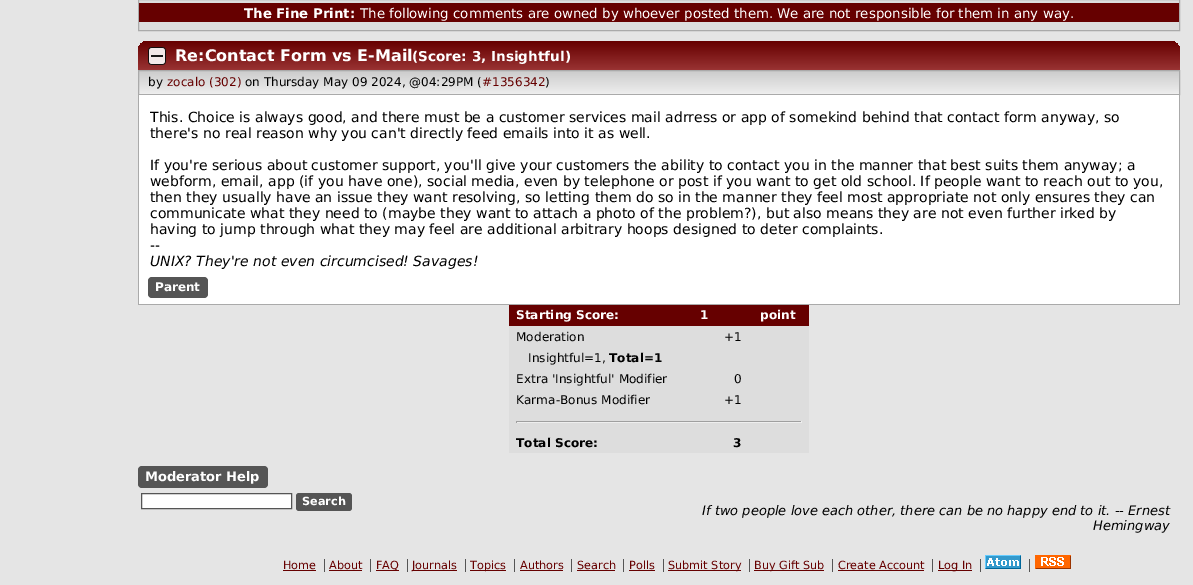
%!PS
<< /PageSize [1193 585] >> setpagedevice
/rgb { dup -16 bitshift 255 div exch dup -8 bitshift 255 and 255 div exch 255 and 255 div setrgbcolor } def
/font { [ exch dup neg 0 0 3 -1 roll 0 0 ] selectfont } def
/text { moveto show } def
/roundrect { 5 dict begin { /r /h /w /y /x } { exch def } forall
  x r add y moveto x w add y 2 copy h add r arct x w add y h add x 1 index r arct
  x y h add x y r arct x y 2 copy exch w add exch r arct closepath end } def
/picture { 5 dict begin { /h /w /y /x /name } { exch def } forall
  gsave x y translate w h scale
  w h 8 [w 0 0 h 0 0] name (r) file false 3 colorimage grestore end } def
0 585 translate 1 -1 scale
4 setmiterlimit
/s1 { /DejaVuSans-Bold 13.33 font 16#FFFFFF rgb } def
/s2 { /DejaVuSans-Regular 13.33 font 16#FFFFFF rgb } def
/s3 { /DejaVuSans-Bold 16 font 16#FFFFFF rgb } def
/s4 { /DejaVuSans-Bold 13.6 font 16#FFFFFF rgb } def
/s5 { /DejaVuSans-Regular 12 font 16#000000 rgb } def
/s6 { /DejaVuSans-Regular 12 font 16#660000 rgb } def
/s7 { /DejaVuSans-Regular 14 font 16#000000 rgb } def
/s8 { /DejaVuSans-Italic 14 font 16#000000 rgb } def
/s9 { /DejaVuSans-Bold 12 font 16#FFFFFF rgb } def
/s10 { /DejaVuSans-Bold 12.1 font 16#FFFFFF rgb } def
/s11 { /DejaVuSans-Regular 12.1 font 16#000000 rgb } def
/s12 { /DejaVuSans-Bold 12.1 font 16#000000 rgb } def
/s13 { /DejaVuSans-Bold 13 font 16#FFFFFF rgb } def
/s14 { /DejaVuSans-Bold 11.25 font 16#FFFFFF rgb } def
/s15 { /DejaVuSans-Italic 13 font 16#000000 rgb } def
/s16 { /DejaVuSans-Regular 11.25 font 16#660000 rgb } def
16#E5E5E5 rgb
0 0 1193 585 rectfill
16#DDDDDD rgb
138.5 -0.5 moveto 1179.5 -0.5 lineto 1179.5 30.5 lineto 138.5 30.5 lineto closepath gsave fill grestore
16#AAAAAA rgb
stroke
16#660000 rgb
139 3 1040 19 rectfill
s1
(The Fine Print:) 244 18 text
s2
(The following comments are owned by whoever posted them. We are not responsible for them in any way.) 360 18 text
gsave 148 41 moveto 1170 41 lineto 1175.5 41 1180 45.5 1180 51 curveto 1180 70 lineto 138 70 lineto 138 51 lineto 138 45.5 142.5 41 148 41 curveto closepath clip newpath
<< /ShadingType 2 /ColorSpace /DeviceRGB /Coords [659 41 659 70] /Extend [true true] /Function << /FunctionType 2 /Domain [0 1] /C0 [0.4 0 0] /C1 [0.6 0.2 0.2] /N 1 >> >> shfill grestore
(pic1.raw) 148 47 18 18 picture
s3
(Re:Contact Form vs E-Mail) 175 61 text
s4
(\(Score: 3, Insightful\)) 412 61 text
gsave 139 71 moveto 1179 71 lineto 1179 94 lineto 139 94 lineto closepath clip newpath
<< /ShadingType 2 /ColorSpace /DeviceRGB /Coords [659 71 659 94] /Extend [true true] /Function << /FunctionType 2 /Domain [0 1] /C0 [0.8 0.8 0.8] /C1 [0.933 0.933 0.933] /N 1 >> >> shfill grestore
16#AAAAAA rgb
138.5 70.5 1041 24 rectstroke
s5
(by) 148 86 text
s6
(zocalo \(302\)) 167 86 text
s5
(on Thursday May 09 2024, @04:29PM \() 245 86 text
s6
(#1356342) 482 86 text
s5
(\)) 545 86 text
16#FFFFFF rgb
139 95 1040 209 rectfill
16#AAAAAA rgb
1179 95 1 210 rectfill
138 95 1 176 rectfill
s7
(This. Choice is always good, and there must be a customer services mail adrress or app of somekind behind that contact form anyway, so) 150 122 text
(there's no real reason why you can't directly feed emails into it as well.) 150 138 text
(If you're serious about customer support, you'll give your customers the ability to contact you in the manner that best suits them anyway; a) 150 170 text
(webform, email, app \(if you have one\), social media, even by telephone or post if you want to get old school. If people want to reach out to you,) 150 186 text
(then they usually have an issue they want resolving, so letting them do so in the manner they feel most appropriate not only ensures they can) 150 202 text
(communicate what they need to \(maybe they want to attach a photo of the problem?\), but also means they are not even further irked by) 150 218 text
(having to jump through what they may feel are additional arbitrary hoops designed to deter complaints.) 150 234 text
(--) 150 250 text
s8
(UNIX? They're not even circumcised! Savages!) 150 266 text
16#AAAAAA rgb
138 304 1042 1 rectfill
138 271 1 34 rectfill
16#555555 rgb
148 277 60 21 4 roundrect fill
s9
(Parent) 155 291 text
16#660000 rgb
509 305 300 21 rectfill
s10
(Starting Score:) 516 319 text
(1) 700 319 text
(point) 760 319 text
16#DDDDDD rgb
509 326 300 127 rectfill
s11
(Moderation) 516 341 text
(+1) 724 341 text
(Insightful=1,) 528 362 text
s12
(Total=1) 609 362 text
s11
(Extra 'Insightful' Modifier) 516 383 text
(0) 734 383 text
(Karma-Bonus Modifier) 516 404 text
(+1) 724 404 text
16#9F9F9F rgb
516 421 286 1 rectfill
16#EEEEEE rgb
801 421 1 2 rectfill
516 422 286 1 rectfill
16#9F9F9F rgb
516 421 1 2 rectfill
s12
(Total Score:) 516 447 text
(3) 733 447 text
16#555555 rgb
138 466 130 22 4 roundrect fill
s13
(Moderator Help) 145 481 text
141.5 493.5 moveto 291.5 493.5 lineto 291.5 508.5 lineto 141.5 508.5 lineto closepath gsave fill grestore
16#555555 rgb
stroke
296 493 56 18 3 roundrect fill
s14
(Search) 302 505 text
s15
(If two people love each other, there can be no happy end to it. -- Ernest) 702 515 text
(Hemingway) 1093 530 text
s16
(Home) 283 569 text
283 570 33 1 rectfill
(About) 329 569 text
16#555555 rgb
324 559 1 13 rectfill
16#660000 rgb
329 570 33 1 rectfill
376 570 23 1 rectfill
(FAQ) 376 569 text
16#555555 rgb
370 559 1 13 rectfill
16#660000 rgb
412 570 45 1 rectfill
(Journals) 412 569 text
16#555555 rgb
407 559 1 13 rectfill
16#660000 rgb
470 570 36 1 rectfill
(Topics) 470 569 text
16#555555 rgb
465 559 1 13 rectfill
s16
(Authors) 520 569 text
16#555555 rgb
514 559 1 13 rectfill
16#660000 rgb
520 570 43 1 rectfill
(Search) 577 569 text
16#555555 rgb
571 559 1 13 rectfill
16#660000 rgb
577 570 38 1 rectfill
(Polls) 629 569 text
16#555555 rgb
623 559 1 13 rectfill
16#660000 rgb
629 570 26 1 rectfill
668 570 73 1 rectfill
(Submit Story) 668 569 text
16#555555 rgb
663 559 1 13 rectfill
16#660000 rgb
754 570 70 1 rectfill
(Buy Gift Sub) 754 569 text
16#555555 rgb
749 559 1 13 rectfill
s16
(Create Account) 838 569 text
16#555555 rgb
832 559 1 13 rectfill
16#660000 rgb
838 570 86 1 rectfill
938 570 34 1 rectfill
(Log In) 938 569 text
16#555555 rgb
932 559 1 13 rectfill
980 559 1 13 rectfill
(pic2.raw) 985 555 36 14 picture
1029 559 1 13 rectfill
(pic3.raw) 1035 555 36 14 picture
showpage
